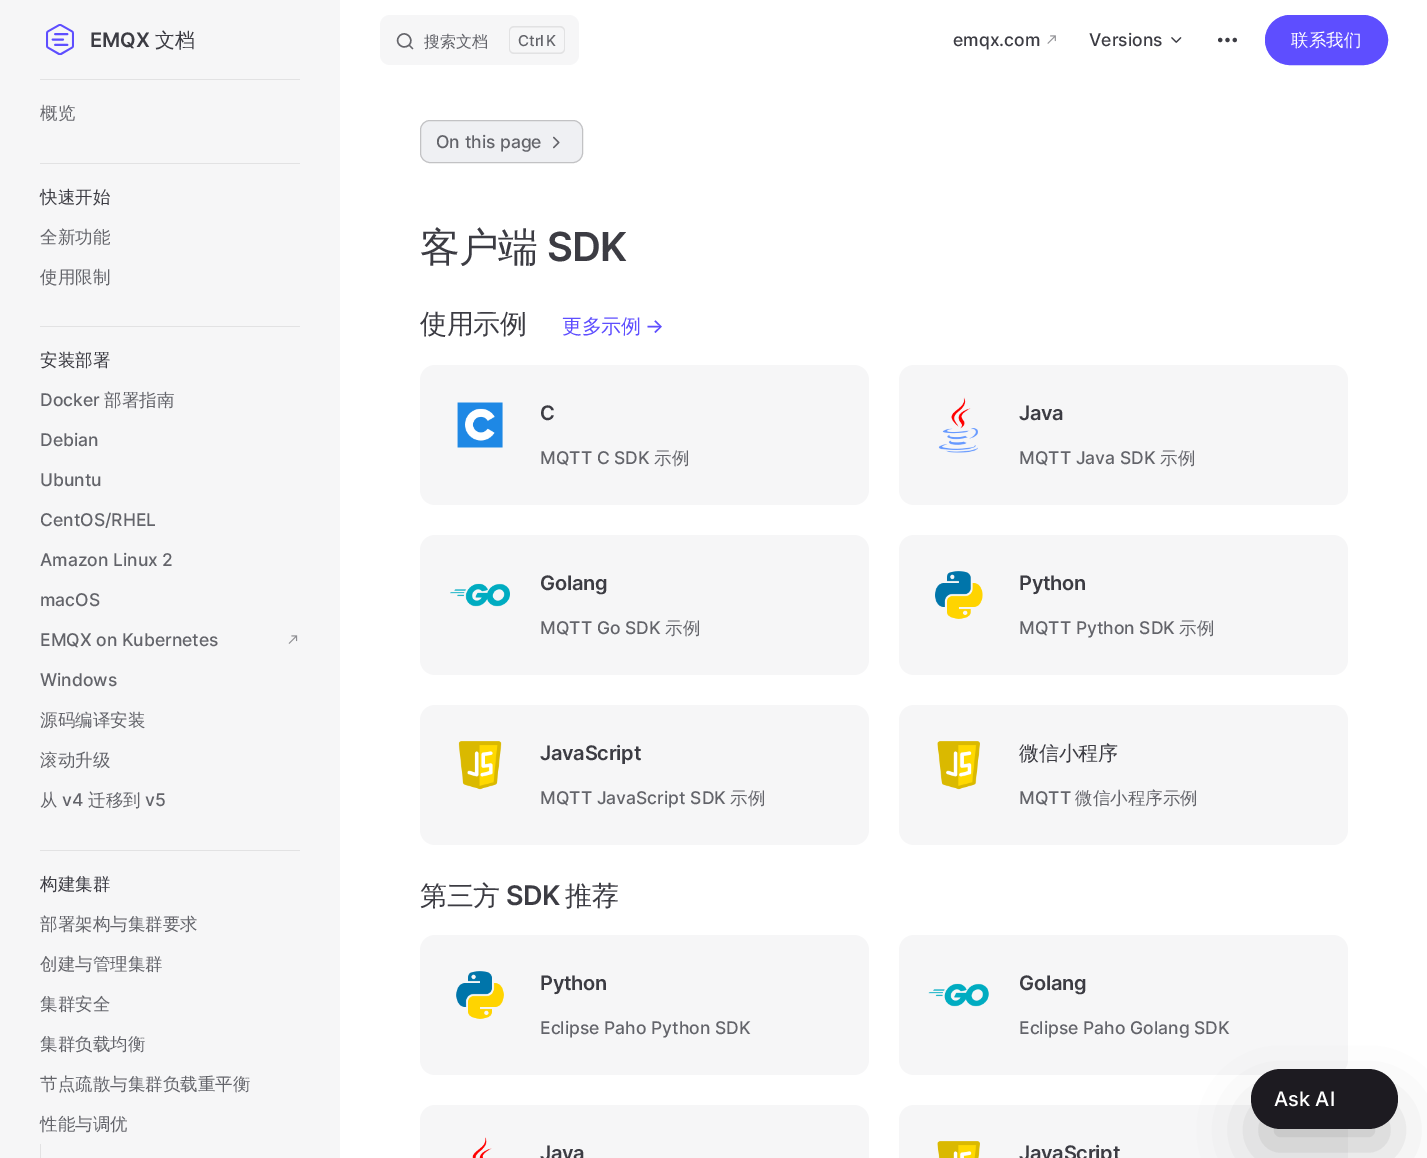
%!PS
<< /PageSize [1427 1158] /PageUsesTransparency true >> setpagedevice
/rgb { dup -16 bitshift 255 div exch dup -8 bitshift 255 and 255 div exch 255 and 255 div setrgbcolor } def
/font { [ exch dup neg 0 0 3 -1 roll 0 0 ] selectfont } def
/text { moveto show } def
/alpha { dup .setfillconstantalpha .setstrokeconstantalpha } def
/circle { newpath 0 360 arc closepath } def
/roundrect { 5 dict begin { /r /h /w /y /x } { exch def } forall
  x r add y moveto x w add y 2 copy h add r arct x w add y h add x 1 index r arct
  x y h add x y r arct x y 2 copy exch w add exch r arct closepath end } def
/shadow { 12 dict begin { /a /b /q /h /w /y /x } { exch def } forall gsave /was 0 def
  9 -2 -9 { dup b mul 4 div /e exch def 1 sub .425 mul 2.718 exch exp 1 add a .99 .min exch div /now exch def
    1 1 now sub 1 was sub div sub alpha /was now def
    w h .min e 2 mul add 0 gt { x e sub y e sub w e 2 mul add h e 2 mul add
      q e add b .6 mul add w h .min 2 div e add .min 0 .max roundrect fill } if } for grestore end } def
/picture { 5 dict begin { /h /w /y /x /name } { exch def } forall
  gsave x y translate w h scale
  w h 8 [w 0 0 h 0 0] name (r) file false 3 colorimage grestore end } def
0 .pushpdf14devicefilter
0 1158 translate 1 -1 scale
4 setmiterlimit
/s1 { /Inter-SemiBold 20 font 16#3C3C43 rgb } def
/s2 { /WenQuanYiZenHei-Medium 20 font 16#3C3C43 rgb } def
/s3 { /WenQuanYiZenHei-Medium 16 font 16#63646A rgb } def
/s4 { /Inter-Medium 15 font 16#63646A rgb } def
/s5 { /Inter-Medium 17.5 font 16#3C3C43 rgb } def
/s6 { /WenQuanYiZenHei-Medium 17.5 font 16#FFFFFF rgb } def
/s7 { /WenQuanYiZenHei-Medium 17.5 font 16#63646A rgb } def
/s8 { /WenQuanYiZenHei-Medium 17.5 font 16#3C3C43 rgb } def
/s9 { /Inter-Medium 17.5 font 16#63646A rgb } def
/s10 { /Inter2-Medium 20 font 16#FFFFFF rgb } def
16#FFFFFF rgb
0 0 1427 1158 rectfill
16#F6F6F7 rgb
0 0 340 1158 rectfill
16#E2E2E3 rgb
40 79 260 1 rectfill
(pic1.raw) 46 24 28 32 picture
s1
(EMQX) 90 47 text
s2
(文档) 155 47 text
16#F6F6F7 rgb
380 15 199 50 10 roundrect fill
16#65656B rgb
1.4 setlinewidth
1 setlinecap
1 setlinejoin
409 45 moveto 412.5 48.5 lineto 409 45 lineto 402.5 51 393.5 42 399.5 36 curveto 405.5 29.5 415 39 409 45 curveto closepath stroke
s3
(搜索文档) 424 47 text
16#E2E2E3 rgb
514 26 moveto 544 26 lineto 544 54 lineto 514 54 lineto 511 54 509 51.5 509 49 curveto 509 31 lineto 509 28.5 511 26 514 26 curveto closepath 514 27.5 moveto 544 27.5 lineto 544 52.5 lineto 514 52.5 lineto 511.5 52.5 510 51 510 49 curveto 510 31 lineto 510 29 511.5 27.5 514 27.5 curveto closepath eofill
s4
(Ctrl) 518 46 text
16#E2E2E3 rgb
544 26 moveto 560 26 lineto 563 26 565 28.5 565 31 curveto 565 49 lineto 565 51.5 563 54 560 54 curveto 544 54 lineto closepath 544 27.5 moveto 560 27.5 lineto 562 27.5 564 29 564 31 curveto 564 49 lineto 564 51 562 52.5 560 52.5 curveto 544 52.5 lineto closepath eofill
s4
(K) 546 46 text
s5
(emqx.com) 953 46 text
(pic2.raw) 1047 35 9 9 picture
(Versions) 1089 46 text
(pic3.raw) 1171 37 11 6 picture
1227.5 40 2.1 circle fill
1234.8 40 2.1 circle fill
1220.2 40 2.1 circle fill
16#5E4EFF rgb
1265.5 15.5 122 49 24.5 roundrect gsave fill grestore
1 setlinewidth
0 setlinecap
0 setlinejoin
stroke
s6
(联系我们) 1291 46 text
s7
(概览) 40 119 text
16#E2E2E3 rgb
40 163 260 1 rectfill
s8
(快速开始) 40 203 text
s7
(全新功能) 40 243 text
(使用限制) 40 283 text
16#E2E2E3 rgb
40 326 260 1 rectfill
s8
(安装部署) 40 366 text
s9
(Docker) 40 406 text
s7
(部署指南) 104 406 text
s9
(Debian) 40 446 text
(Ubuntu) 40 486 text
(CentOS/RHEL) 40 526 text
(Amazon Linux 2) 40 566 text
(macOS) 40 606 text
(EMQX on Kubernetes) 40 646 text
(pic4.raw) 288 635 10 9 picture
(Windows) 40 686 text
s7
(源码编译安装) 40 726 text
(滚动升级) 40 766 text
(从) 40 806 text
s9
(v4) 62 806 text
s7
(迁移到) 88 806 text
s9
(v5) 145 806 text
16#E2E2E3 rgb
40 850 260 1 rectfill
s8
(构建集群) 40 890 text
s7
(部署架构与集群要求) 40 930 text
(创建与管理集群) 40 970 text
(集群安全) 40 1010 text
(集群负载均衡) 40 1050 text
(节点疏散与集群负载重平衡) 40 1090 text
(性能与调优) 40 1130 text
16#E2E2E3 rgb
40 1144 1 14 rectfill
16#EFF0F3 rgb
420.5 120.5 162 42 9.5 roundrect gsave fill grestore
16#C2C2C4 rgb
stroke
s9
(On this page) 436 148 text
(pic5.raw) 553 136 7 13 picture
/WenQuanYiZenHei-Medium 40 font
16#3C3C43 rgb
420 261 moveto -1 0 (客户端) ashow
/Inter-SemiBold 40 font
547 261 moveto -1 0 (SDK) ashow
/WenQuanYiZenHei-Medium 27 font
420 333 moveto -0.5 0 (使用示例) ashow
/WenQuanYiZenHei-Medium 20 font
16#5E4EFF rgb
562 333 moveto -0.5 0 (更多示例) ashow
/Inter2-Medium 20 font
645 333 moveto -0.5 0 (→) ashow
16#F6F6F7 rgb
420 365 449 140 15 roundrect fill
(pic6.raw) 457 402 46 46 picture
/Inter-SemiBold 20 font
16#3C3C43 rgb
540 420 moveto -0.25 0 (C) ashow
s9
(MQTT C SDK) 540 464 text
s7
(示例) 654 464 text
16#F6F6F7 rgb
899 365 449 140 15 roundrect fill
(pic7.raw) 938 397 40 56 picture
/Inter-SemiBold 20 font
16#3C3C43 rgb
1019 420 moveto -0.25 0 (Java) ashow
s9
(MQTT Java SDK) 1019 464 text
s7
(示例) 1160 464 text
16#F6F6F7 rgb
420 535 449 140 15 roundrect fill
(pic8.raw) 450 583 60 24 picture
/Inter-SemiBold 20 font
16#3C3C43 rgb
540 590 moveto -0.25 0 (Golang) ashow
s9
(MQTT Go SDK) 540 634 text
s7
(示例) 665 634 text
16#F6F6F7 rgb
899 535 449 140 15 roundrect fill
(pic9.raw) 935 571 48 48 picture
/Inter-SemiBold 20 font
16#3C3C43 rgb
1019 590 moveto -0.25 0 (Python) ashow
s9
(MQTT Python SDK) 1019 634 text
s7
(示例) 1179 634 text
16#F6F6F7 rgb
420 705 449 140 15 roundrect fill
(pic10.raw) 458 741 44 49 picture
/Inter-SemiBold 20 font
16#3C3C43 rgb
540 760 moveto -0.25 0 (JavaScript) ashow
s9
(MQTT JavaScript SDK) 540 804 text
s7
(示例) 730 804 text
16#F6F6F7 rgb
899 705 449 140 15 roundrect fill
(pic11.raw) 937 741 43 49 picture
/WenQuanYiZenHei-Medium 20 font
16#3C3C43 rgb
1019 760 moveto -0.25 0 (微信小程序) ashow
s9
(MQTT) 1019 804 text
s7
(微信小程序示例) 1075 804 text
/WenQuanYiZenHei-Medium 27 font
16#3C3C43 rgb
420 905 moveto -0.5 0 (第三方) ashow
/Inter-SemiBold 27 font
506 905 moveto -0.5 0 (SDK) ashow
/WenQuanYiZenHei-Medium 27 font
565 905 moveto -0.5 0 (推荐) ashow
16#F6F6F7 rgb
420 935 449 140 15 roundrect fill
(pic12.raw) 456 971 48 48 picture
/Inter-SemiBold 20 font
16#3C3C43 rgb
540 990 moveto -0.25 0 (Python) ashow
s9
(Eclipse Paho Python SDK) 540 1034 text
16#F6F6F7 rgb
899 935 449 140 15 roundrect fill
(pic13.raw) 928 983 61 24 picture
/Inter-SemiBold 20 font
16#3C3C43 rgb
1019 990 moveto -0.25 0 (Golang) ashow
s9
(Eclipse Paho Golang SDK) 1019 1034 text
16#F6F6F7 rgb
420 1105 449 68 15 roundrect fill
(pic14.raw) 472 1137 20 21 picture
/Inter-SemiBold 20 font
16#3C3C43 rgb
540 1160 moveto -0.25 0 (Java) ashow
16#F6F6F7 rgb
899 1105 449 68 15 roundrect fill
(pic15.raw) 937 1141 43 17 picture
16#3C3C43 rgb
1019 1160 moveto -0.25 0 (JavaScript) ashow
16#000000 rgb
1266 1115 117 30 15 31 0.25 shadow
16#1D1B21 rgb
1251 1069 147 60 30 roundrect fill
s10
(Ask AI) 1274 1106 text
.poppdf14devicefilter showpage
